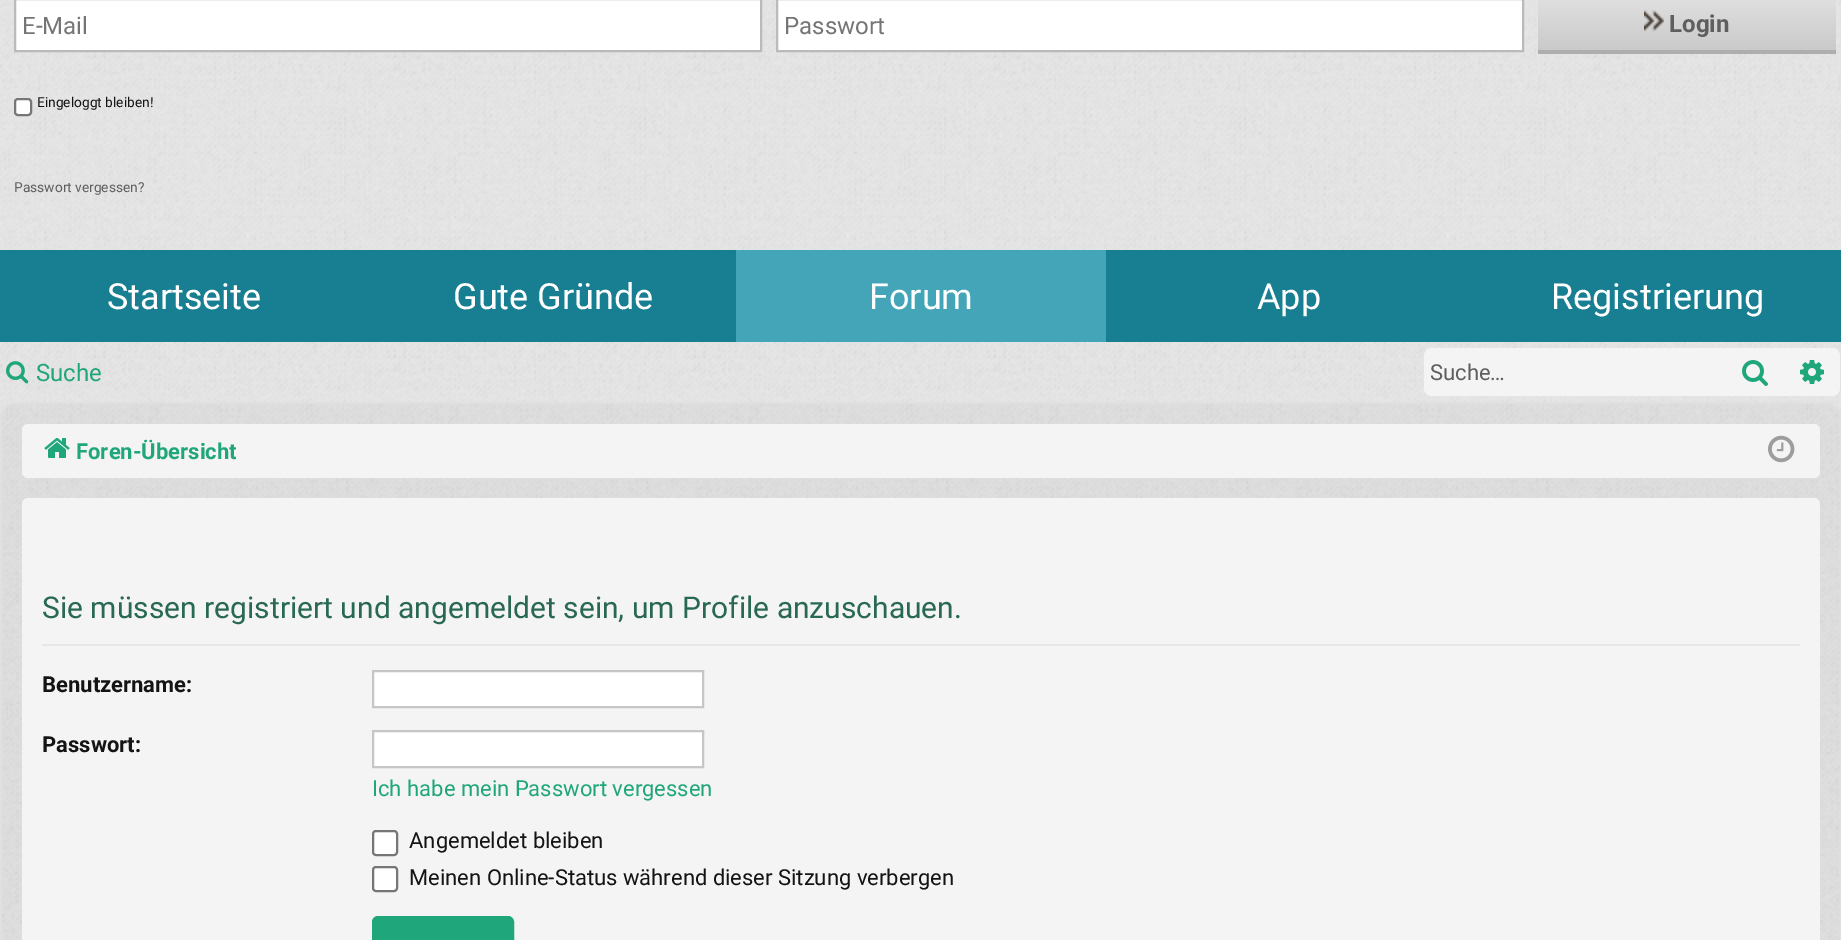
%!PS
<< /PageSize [1841 940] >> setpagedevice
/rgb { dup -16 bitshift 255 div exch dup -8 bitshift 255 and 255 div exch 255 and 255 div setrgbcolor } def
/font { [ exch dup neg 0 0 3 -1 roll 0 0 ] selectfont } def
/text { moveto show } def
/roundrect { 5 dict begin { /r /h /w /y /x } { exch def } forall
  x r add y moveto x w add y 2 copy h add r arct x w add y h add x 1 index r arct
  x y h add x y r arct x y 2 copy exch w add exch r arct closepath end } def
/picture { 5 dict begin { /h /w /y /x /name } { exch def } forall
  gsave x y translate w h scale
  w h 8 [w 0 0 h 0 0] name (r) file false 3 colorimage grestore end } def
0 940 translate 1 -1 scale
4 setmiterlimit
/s1 { /Roboto-Regular 24 font 16#757575 rgb } def
/s2 { /Roboto-Bold 24 font 16#5F5F5F rgb } def
/s3 { /Roboto-Regular 13.75 font 16#141414 rgb } def
/s4 { /Roboto-Regular 13.75 font 16#5F5F5F rgb } def
/s5 { /Roboto-Regular 36 font 16#FFFFFF rgb } def
/s6 { /Roboto-Regular 24 font 16#1FA67A rgb } def
/s7 { /Roboto-Regular 22 font 16#5F5F5F rgb } def
/s8 { /Roboto-Bold 22 font 16#1FA67A rgb } def
/s9 { /Roboto-Regular 30 font 16#296954 rgb } def
/s10 { /Roboto-Bold 22 font 16#141414 rgb } def
/s11 { /Roboto-Regular 22 font 16#1FA67A rgb } def
/s12 { /Roboto-Regular 22 font 16#141414 rgb } def
16#E8E8E8 rgb
0 0 1841 940 rectfill
(pic1.raw) 0 0 1841 418 picture
16#FFFFFF rgb
15 -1 moveto 761 -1 lineto 761 51 lineto 15 51 lineto closepath gsave fill grestore
16#BABABA rgb
2 setlinewidth
stroke
s1
(E-Mail) 22 34 text
16#FFFFFF rgb
777 -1 moveto 1523 -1 lineto 1523 51 lineto 777 51 lineto closepath gsave fill grestore
16#BABABA rgb
stroke
s1
(Passwort) 784 34 text
16#AEAEAE rgb
1538 50 298 4 rectfill
gsave 1538 0 moveto 1836 0 lineto 1836 50 lineto 1538 50 lineto closepath clip newpath
<< /ShadingType 2 /ColorSpace /DeviceRGB /Coords [1687 -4 1687 50] /Extend [true true] /Function << /FunctionType 2 /Domain [0 1] /C0 [0.882 0.882 0.882] /C1 [0.792 0.792 0.792] /N 1 >> >> shfill grestore
(pic2.raw) 1644 10 20 22 picture
s2
(Login) 1669 32 text
16#FFFFFF rgb
15 99 16 16 3 roundrect gsave fill grestore
16#767676 rgb
stroke
s3
(Eingeloggt bleiben!) 37 107 text
s4
(Passwort vergessen?) 14 192 text
16#187E91 rgb
0 250 1841 92 rectfill
s5
(Startseite) 107 309 text
(Gute Gründe) 453 309 text
16#43A5B7 rgb
736 250 370 92 rectfill
s5
(Forum) 869 309 text
(App) 1257 309 text
(Registrierung) 1551 309 text
(pic3.raw) 6 361 23 23 picture
s6
(Suche) 36 381 text
16#F4F4F4 rgb
1432 348 moveto 1724 348 lineto 1724 396 lineto 1432 396 lineto 1427.5 396 1424 392.5 1424 388 curveto 1424 356 lineto 1424 351.5 1427.5 348 1432 348 curveto closepath fill
s7
(Suche…) 1430 380 text
16#F4F4F4 rgb
1724 348 60 48 rectfill
(pic4.raw) 1742 360 26 26 picture
1784 348 moveto 1832 348 lineto 1836.5 348 1840 351.5 1840 356 curveto 1840 388 lineto 1840 392.5 1836.5 396 1832 396 curveto 1784 396 lineto closepath fill
(pic5.raw) 1800 360 24 24 picture
16#E0E0E0 rgb
0 402 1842 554 16 roundrect fill
(pic6.raw) 0 402 1841 538 picture
1 403 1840 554 15 roundrect stroke
16#F4F4F4 rgb
22 424 1798 54 6 roundrect fill
(pic7.raw) 44 438 26 20 picture
s8
(Foren-Übersicht) 76 459 text
(pic8.raw) 1768 435 27 28 picture
16#F4F4F4 rgb
22 498 1798 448 6 roundrect fill
16#E7E7E7 rgb
42 644 1758 2 rectfill
s9
(Sie müssen registriert und angemeldet sein, um Profile anzuschauen.) 42 618 text
s10
(Benutzername:) 42 692 text
16#FFFFFF rgb
373 671 moveto 703 671 lineto 703 707 lineto 373 707 lineto closepath gsave fill grestore
16#C6C6C6 rgb
stroke
s10
(Passwort:) 42 752 text
16#FFFFFF rgb
373 731 moveto 703 731 lineto 703 767 lineto 373 767 lineto closepath gsave fill grestore
16#C6C6C6 rgb
stroke
s11
(Ich habe mein Passwort vergessen) 372 796 text
16#FFFFFF rgb
373 831 24 24 3 roundrect gsave fill grestore
16#767676 rgb
stroke
s12
(Angemeldet bleiben) 409 848 text
16#FFFFFF rgb
373 867 24 24 3 roundrect gsave fill grestore
16#767676 rgb
stroke
s12
(Meinen Online-Status während dieser Sitzung verbergen) 409 885 text
16#1FA67A rgb
373 917 140 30 5 roundrect gsave fill grestore
stroke
showpage
